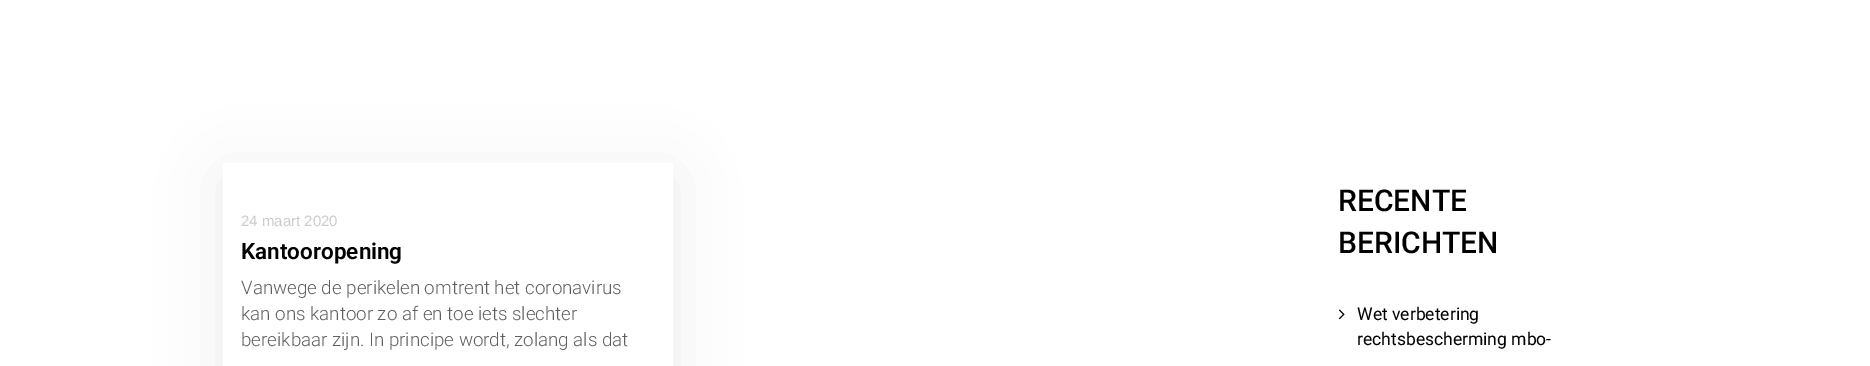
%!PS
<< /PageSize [1870 366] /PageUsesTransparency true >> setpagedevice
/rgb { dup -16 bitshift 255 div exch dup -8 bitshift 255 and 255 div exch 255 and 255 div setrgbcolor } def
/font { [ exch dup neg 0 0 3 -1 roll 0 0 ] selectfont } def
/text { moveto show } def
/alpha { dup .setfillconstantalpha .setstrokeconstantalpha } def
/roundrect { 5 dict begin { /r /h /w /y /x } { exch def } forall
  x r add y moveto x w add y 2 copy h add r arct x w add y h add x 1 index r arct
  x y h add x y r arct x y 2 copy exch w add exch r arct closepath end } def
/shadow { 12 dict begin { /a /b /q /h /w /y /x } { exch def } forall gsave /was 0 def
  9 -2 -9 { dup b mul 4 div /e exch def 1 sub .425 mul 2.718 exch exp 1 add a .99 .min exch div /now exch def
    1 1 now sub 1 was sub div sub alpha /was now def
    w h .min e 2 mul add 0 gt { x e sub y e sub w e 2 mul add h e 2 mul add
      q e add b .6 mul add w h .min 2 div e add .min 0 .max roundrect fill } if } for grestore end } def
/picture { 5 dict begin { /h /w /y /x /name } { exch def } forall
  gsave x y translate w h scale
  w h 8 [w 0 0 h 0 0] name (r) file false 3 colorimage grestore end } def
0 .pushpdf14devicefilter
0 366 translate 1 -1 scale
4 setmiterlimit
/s1 { /LiberationSans-Regular 15 font 16#CCCCCC rgb } def
/s2 { /Roboto-SemiBold 22.5 font 16#000000 rgb } def
/s3 { /Roboto-Light 18.75 font 16#606060 rgb } def
/s4 { /Roboto-Medium 30 font 16#000000 rgb } def
/s5 { /Roboto-Regular 17.5 font 16#000000 rgb } def
16#FFFFFF rgb
0 0 1870 366 rectfill
16#000000 rgb
223 175 450 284 0 31 0.07 shadow
16#FFFFFF rgb
223 163 450 203 rectfill
s1
(24 maart 2020) 241 226 text
s2
(Kantooropening) 241 259 text
s3
(Vanwege de perikelen omtrent het coronavirus) 241 294 text
(kan ons kantoor zo af en toe iets slechter) 241 320 text
(bereikbaar zijn. In principe wordt, zolang als dat) 241 346 text
s4
(RECENTE) 1338 211 text
(BERICHTEN) 1338 253 text
(pic1.raw) 1338 309 7 11 picture
s5
(Wet verbetering) 1357 320 text
(rechtsbescherming mbo-) 1357 345 text
.poppdf14devicefilter showpage
